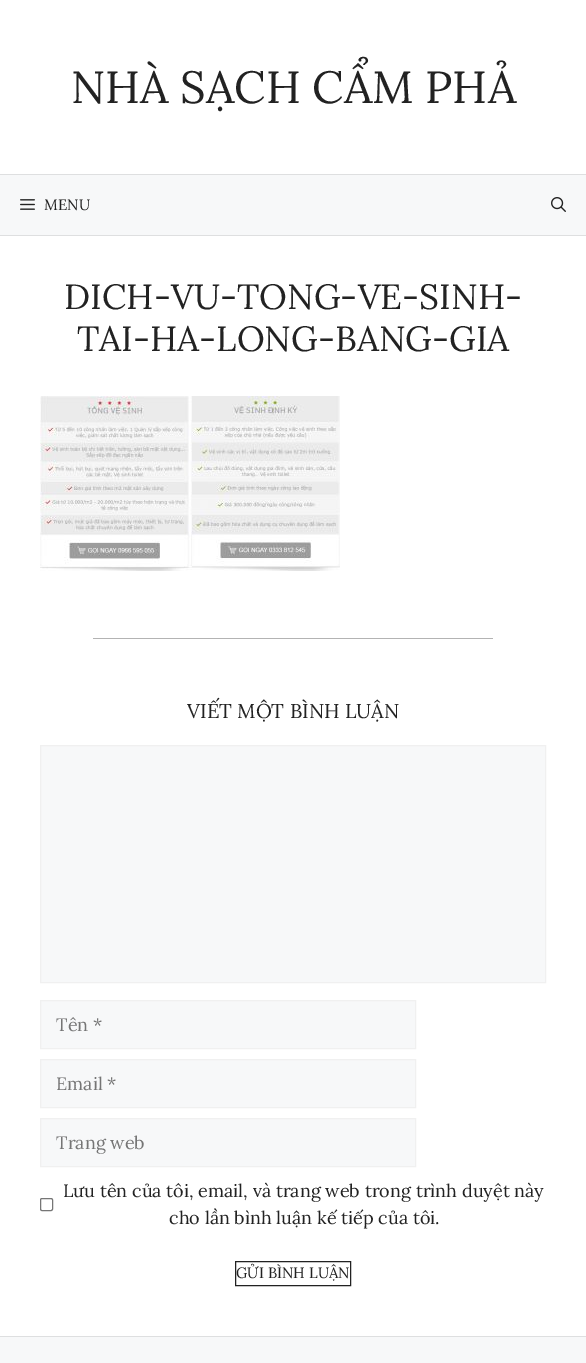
%!PS
<< /PageSize [586 1363] >> setpagedevice
/rgb { dup -16 bitshift 255 div exch dup -8 bitshift 255 and 255 div exch 255 and 255 div setrgbcolor } def
/font { [ exch dup neg 0 0 3 -1 roll 0 0 ] selectfont } def
/text { moveto show } def
/roundrect { 5 dict begin { /r /h /w /y /x } { exch def } forall
  x r add y moveto x w add y 2 copy h add r arct x w add y h add x 1 index r arct
  x y h add x y r arct x y 2 copy exch w add exch r arct closepath end } def
/picture { 5 dict begin { /h /w /y /x /name } { exch def } forall
  gsave x y translate w h scale
  w h 8 [w 0 0 h 0 0] name (r) file false 3 colorimage grestore end } def
0 1363 translate 1 -1 scale
4 setmiterlimit
/s1 { /Lora-Regular 45 font 16#222222 rgb } def
/s2 { /Lora-Regular 15 font 16#222222 rgb } def
/s3 { /Lora-Regular 35 font 16#222222 rgb } def
/s4 { /Lora-Regular 20 font 16#222222 rgb } def
/s5 { /Lora-Regular 18 font 16#757575 rgb } def
/s6 { /Lora-Regular 18 font 16#222222 rgb } def
16#F7F8F9 rgb
0 0 586 1363 rectfill
16#FFFFFF rgb
0 0 586 174 rectfill
s1
(NHÀ SẠCH CẨM PHẢ) 71 103 text
16#DEDFE0 rgb
0 174 586 1 rectfill
0 235 586 1 rectfill
(pic1.raw) 20 199 15 11 picture
s2
(MENU) 44 210 text
(pic2.raw) 551 197 15 15 picture
16#FFFFFF rgb
0 236 586 1100 rectfill
s3
(DICH-VU-TONG-VE-SINH-) 64 309 text
(TAI-HA-LONG-BANG-GIA) 77 351 text
(pic3.raw) 40 396 300 175 picture
16#B3B3B3 rgb
93 638 400 1 rectfill
s4
(VIẾT MỘT BÌNH LUẬN) 187 718 text
16#F7F8F9 rgb
40.5 745.5 moveto 545.5 745.5 lineto 545.5 982.5 lineto 40.5 982.5 lineto closepath gsave fill grestore
16#F0F0F0 rgb
stroke
16#F7F8F9 rgb
40.5 1000.5 moveto 415.5 1000.5 lineto 415.5 1048.5 lineto 40.5 1048.5 lineto closepath gsave fill grestore
16#F0F0F0 rgb
stroke
s5
(Tên *) 56 1031 text
16#F7F8F9 rgb
40.5 1059.5 moveto 415.5 1059.5 lineto 415.5 1107.5 lineto 40.5 1107.5 lineto closepath gsave fill grestore
16#F0F0F0 rgb
stroke
s5
(Email *) 56 1090 text
16#F7F8F9 rgb
40.5 1118.5 moveto 415.5 1118.5 lineto 415.5 1166.5 lineto 40.5 1166.5 lineto closepath gsave fill grestore
16#F0F0F0 rgb
stroke
s5
(Trang web) 56 1149 text
16#767676 rgb
40.5 1198.5 12 12 1.5 roundrect stroke
s6
(Lưu tên của tôi, email, và trang web trong trình duyệt này) 63 1197 text
(cho lần bình luận kế tiếp của tôi.) 169 1224 text
235.5 1261.5 115 24 rectstroke
s2
(GỬI BÌNH LUẬN) 236 1278 text
16#DEDFE0 rgb
0 1336 586 1 rectfill
showpage
